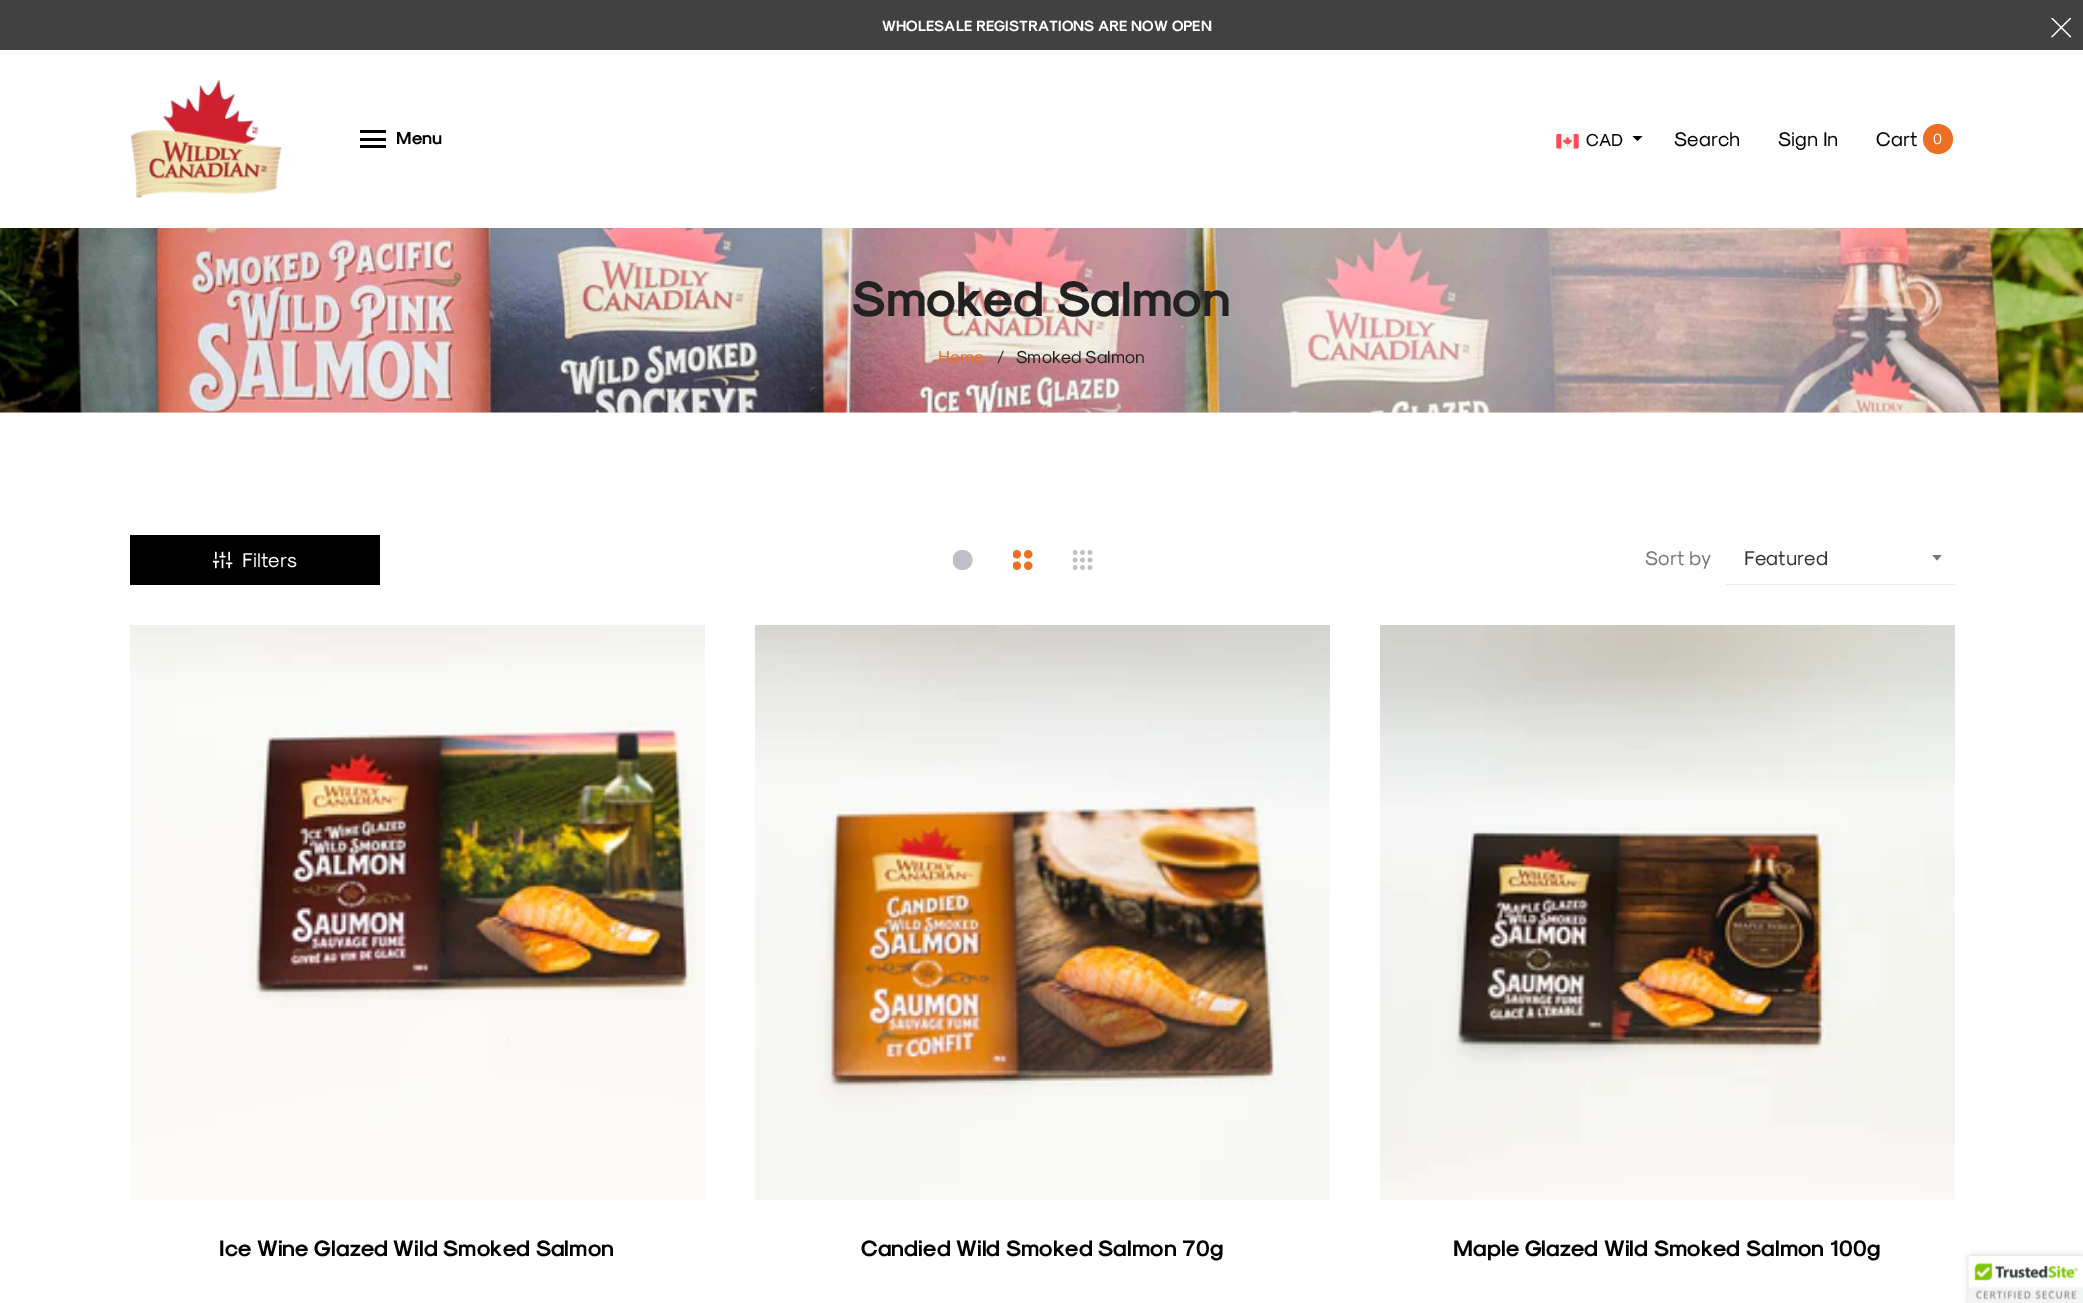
%!PS
<< /PageSize [2083 1303] /PageUsesTransparency true >> setpagedevice
/rgb { dup -16 bitshift 255 div exch dup -8 bitshift 255 and 255 div exch 255 and 255 div setrgbcolor } def
/font { [ exch dup neg 0 0 3 -1 roll 0 0 ] selectfont } def
/text { moveto show } def
/alpha { dup .setfillconstantalpha .setstrokeconstantalpha } def
/circle { newpath 0 360 arc closepath } def
/roundrect { 5 dict begin { /r /h /w /y /x } { exch def } forall
  x r add y moveto x w add y 2 copy h add r arct x w add y h add x 1 index r arct
  x y h add x y r arct x y 2 copy exch w add exch r arct closepath end } def
/shadow { 12 dict begin { /a /b /q /h /w /y /x } { exch def } forall gsave /was 0 def
  9 -2 -9 { dup b mul 4 div /e exch def 1 sub .425 mul 2.718 exch exp 1 add a .99 .min exch div /now exch def
    1 1 now sub 1 was sub div sub alpha /was now def
    w h .min e 2 mul add 0 gt { x e sub y e sub w e 2 mul add h e 2 mul add
      q e add b .6 mul add w h .min 2 div e add .min 0 .max roundrect fill } if } for grestore end } def
/picture { 5 dict begin { /h /w /y /x /name } { exch def } forall
  gsave x y translate w h scale
  w h 8 [w 0 0 h 0 0] name (r) file false 3 colorimage grestore end } def
0 .pushpdf14devicefilter
0 1303 translate 1 -1 scale
4 setmiterlimit
/s1 { /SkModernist-Bold 15 font 16#FFFFFF rgb } def
/s2 { /SkModernist-Bold 17.5 font 16#000000 rgb } def
/s3 { /SkModernist-Regular 17.5 font 16#000000 rgb } def
/s4 { /SkModernist-Regular 20 font 16#000000 rgb } def
/s5 { /SkModernist-Regular 15 font 16#FFFFFF rgb } def
/s6 { /SkModernist-Bold 50 font 16#222222 rgb } def
/s7 { /SkModernist-Regular 17.5 font 16#EB7025 rgb } def
/s8 { /SkModernist-Regular 17.5 font 16#222222 rgb } def
/s9 { /SkModernist-Regular 20 font 16#FFFFFF rgb } def
/s10 { /SkModernist-Regular 20 font 16#777777 rgb } def
/s11 { /SkModernist-Regular 20 font 16#333333 rgb } def
/s12 { /SkModernist-Bold 22.5 font 16#000000 rgb } def
16#FFFFFF rgb
0 0 2083 1303 rectfill
16#414141 rgb
0 0 2083 50 rectfill
s1
(WHOLESALE REGISTRATIONS ARE NOW OPEN) 882 31 text
(pic1.raw) 2051 18 20 20 picture
(pic2.raw) 131 80 151 118 picture
16#000000 rgb
360 130 26 3 rectfill
360 138 26 3 rectfill
360 145 26 3 rectfill
s2
(Menu) 396 144 text
(pic3.raw) 1556 133 23 16 picture
s3
(CAD) 1586 146 text
1632.5 136 moveto 1642.5 136 lineto 1637.5 141 lineto closepath fill
s4
(Search) 1674 146 text
(Sign In) 1778 146 text
(Cart) 1876 146 text
16#EB7025 rgb
1938 139 15 circle fill
s5
(0) 1933 144 text
16#FFEFE6 rgb
0 412 2083 1 rectfill
(pic4.raw) 0 228 2083 185 picture
s6
(Smoked Salmon) 852 316 text
s7
(Home) 938 363 text
s8
(/) 997 363 text
(Smoked Salmon) 1016 363 text
16#000000 rgb
130 535 250 50 rectfill
(pic5.raw) 213 551 20 18 picture
s9
(Filters) 242 567 text
gsave
953 550 20 20 rectclip
16#BFBFC8 rgb
962.5 560 10 circle fill
grestore
(pic6.raw) 1013 550 20 20 picture
(pic7.raw) 1073 550 20 20 picture
s10
(Sort by) 1645 565 text
1932.5 555 moveto 1937 560.5 lineto 1941.5 555 lineto closepath fill
16#E9ECEF rgb
1726 584 229 1 rectfill
s11
(Featured) 1744 565 text
(pic8.raw) 130 625 575 575 picture
s12
(Ice Wine Glazed Wild Smoked Salmon) 219 1256 text
(pic9.raw) 755 625 575 575 picture
(Candied Wild Smoked Salmon 70g) 861 1256 text
(pic10.raw) 1380 625 575 575 picture
(Maple Glazed Wild Smoked Salmon 100g) 1453 1256 text
1969 1256 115 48 2.5 3 0.2 shadow
16#FFFFFF rgb
1971.5 1256 moveto 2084 1256 lineto 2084 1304 lineto 1969 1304 lineto 1969 1258.5 lineto 1969 1257 1970 1256 1971.5 1256 curveto closepath fill
(pic11.raw) 1968 1256 115 47 picture
.poppdf14devicefilter showpage
